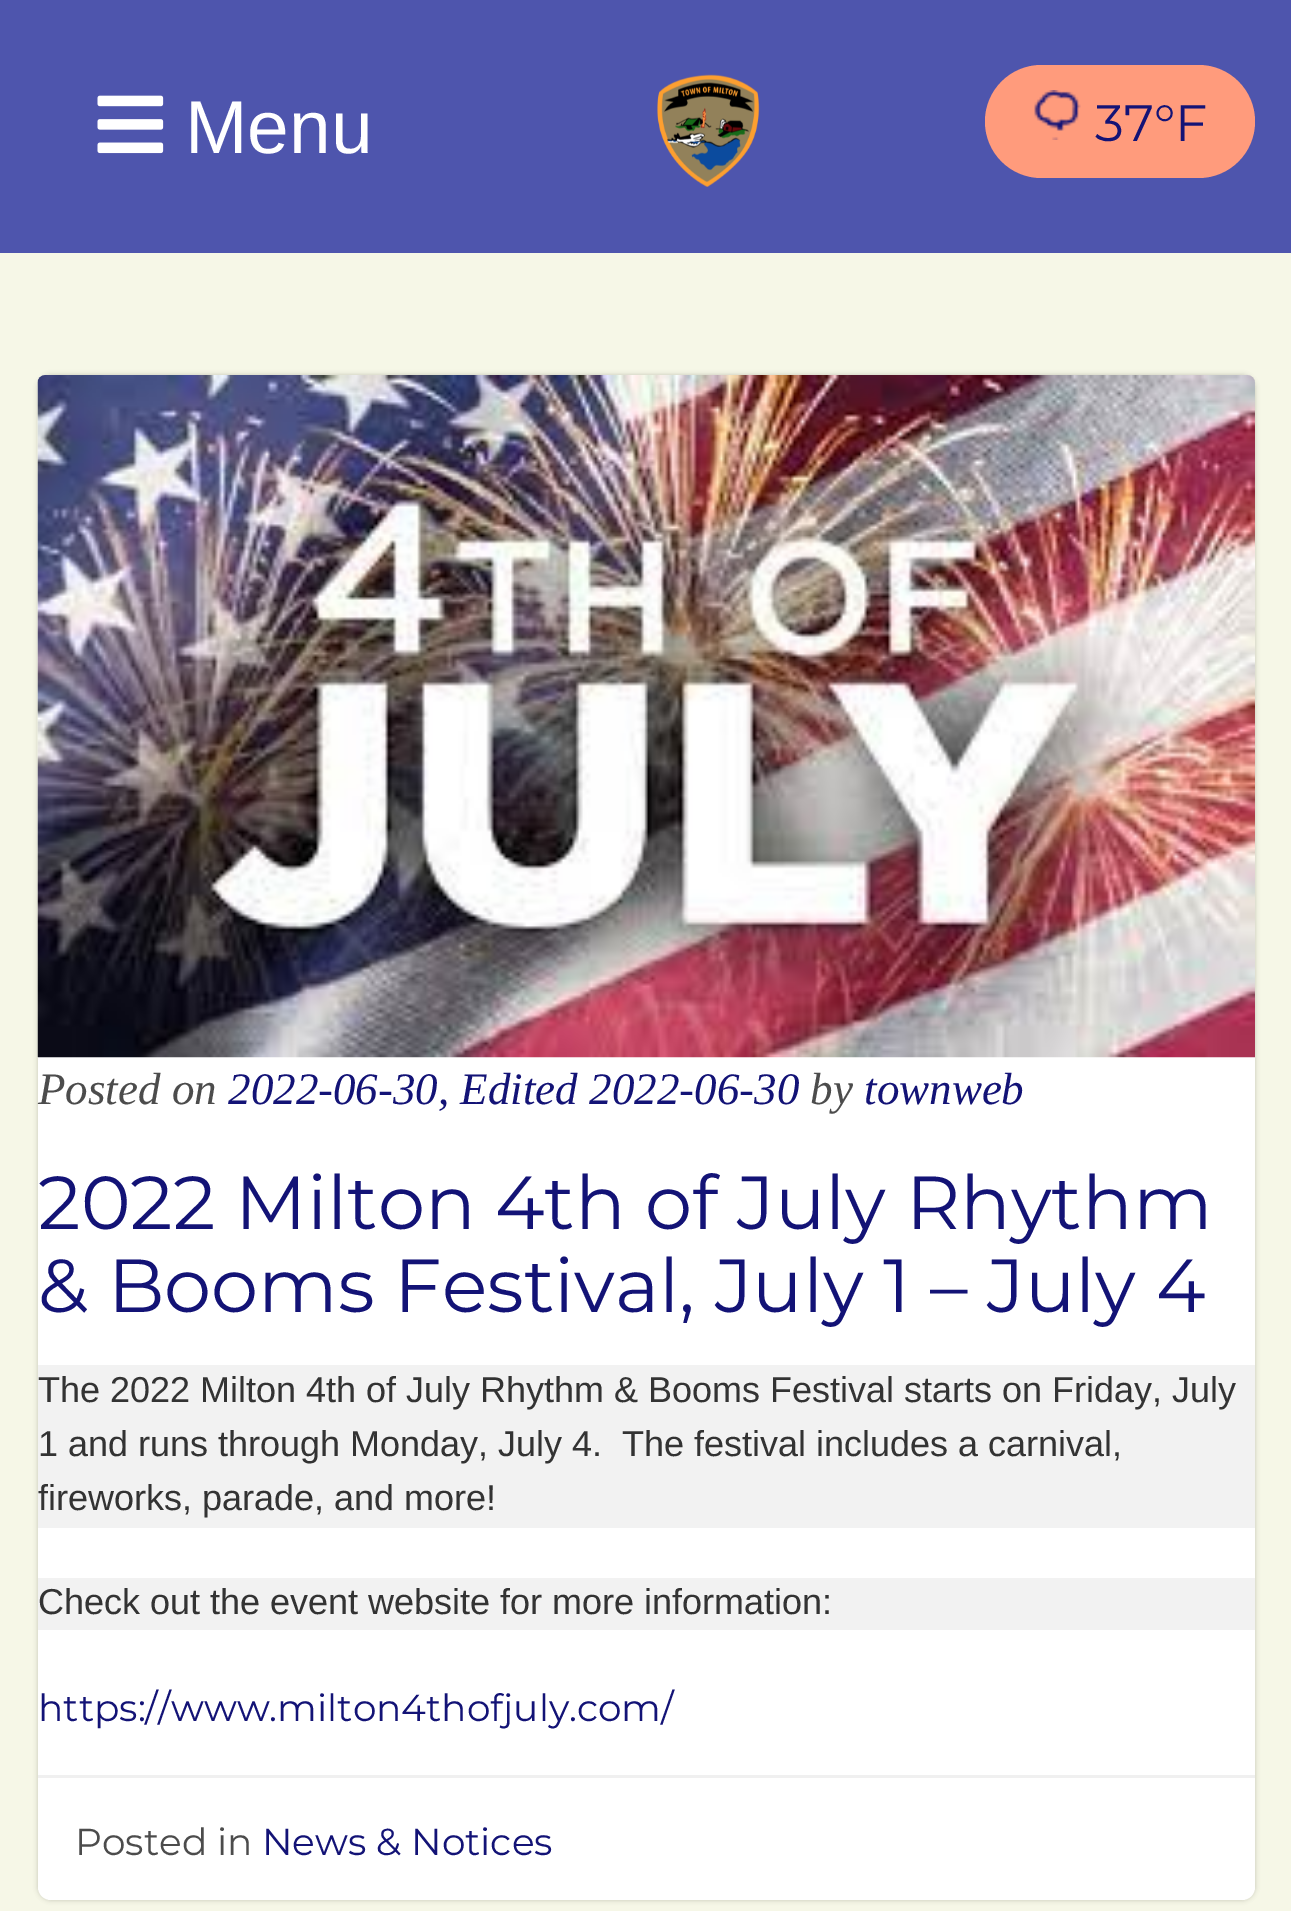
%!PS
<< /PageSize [1291 1911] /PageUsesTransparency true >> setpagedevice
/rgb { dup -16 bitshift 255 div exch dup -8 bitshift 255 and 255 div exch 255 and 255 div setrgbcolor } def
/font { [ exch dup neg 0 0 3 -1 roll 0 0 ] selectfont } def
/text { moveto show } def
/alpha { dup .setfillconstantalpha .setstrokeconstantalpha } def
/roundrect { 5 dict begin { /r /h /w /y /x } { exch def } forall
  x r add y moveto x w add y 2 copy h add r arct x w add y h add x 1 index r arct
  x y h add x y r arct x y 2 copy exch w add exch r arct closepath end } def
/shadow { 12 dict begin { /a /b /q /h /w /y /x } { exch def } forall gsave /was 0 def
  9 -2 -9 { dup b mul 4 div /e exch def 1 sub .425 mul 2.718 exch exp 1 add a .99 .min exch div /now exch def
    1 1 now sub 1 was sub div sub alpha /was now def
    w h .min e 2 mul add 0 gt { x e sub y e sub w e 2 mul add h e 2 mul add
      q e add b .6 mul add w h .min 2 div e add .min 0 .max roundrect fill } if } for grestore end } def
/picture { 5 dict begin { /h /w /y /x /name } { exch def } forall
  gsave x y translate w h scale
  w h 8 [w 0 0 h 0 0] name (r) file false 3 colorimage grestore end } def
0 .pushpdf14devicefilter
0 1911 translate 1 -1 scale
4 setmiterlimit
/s1 { /LiberationSans-Regular 75 font 16#FFFFFF rgb } def
/s2 { /Montserrat-Regular 51 font 16#131376 rgb } def
/s3 { /LiberationSerif-Italic 45 font 16#4C4C4C rgb } def
/s4 { /LiberationSerif-Italic 45 font 16#131376 rgb } def
/s5 { /Montserrat-Regular 75 font 16#131376 rgb } def
/s6 { /LiberationSans-Regular 36 font 16#333333 rgb } def
/s7 { /Montserrat-Regular 37.5 font 16#131376 rgb } def
/s8 { /Montserrat-Regular 37.5 font 16#4C4C4C rgb } def
16#F6F7E7 rgb
0 0 1291 1911 rectfill
16#4E55AD rgb
0 0 1291 253 rectfill
(pic1.raw) 97 95 67 59 picture
s1
(Menu) 185 153 text
(pic2.raw) 657 74 103 113 picture
16#FF9B7C rgb
985 65 270 113 56.5 roundrect fill
(pic3.raw) 1034 90 47 50 picture
s2
(37°F) 1095 141 text
16#000000 rgb
38 375 1217 1525 13 2.5 0.2 shadow
16#FFFFFF rgb
38 375 1217 1525 13 roundrect fill
(pic4.raw) 37 375 1218 683 picture
s3
(Posted on) 38 1104 text
s4
(2022-06-30, Edited 2022-06-30) 228 1104 text
s3
(by) 810 1104 text
s4
(townweb) 864 1104 text
s5
(2022 Milton 4th of July Rhythm) 38 1229 text
(& Booms Festival, July 1 – July 4) 38 1312 text
16#F2F2F2 rgb
38 1365 1217 163 rectfill
s6
(The 2022 Milton 4th of July Rhythm & Booms Festival starts on Friday, July) 38 1402 text
(1 and runs through Monday, July 4.  The festival includes a carnival,) 38 1456 text
(fireworks, parade, and more!) 38 1510 text
16#F2F2F2 rgb
38 1578 1217 52 rectfill
s6
(Check out the event website for more information:) 38 1614 text
s7
(https://www.milton4thofjuly.com/) 38 1721 text
16#F0F0F0 rgb
38 1775 1217 3 rectfill
s8
(Posted in) 75 1855 text
s7
(News & Notices) 262 1855 text
.poppdf14devicefilter showpage
